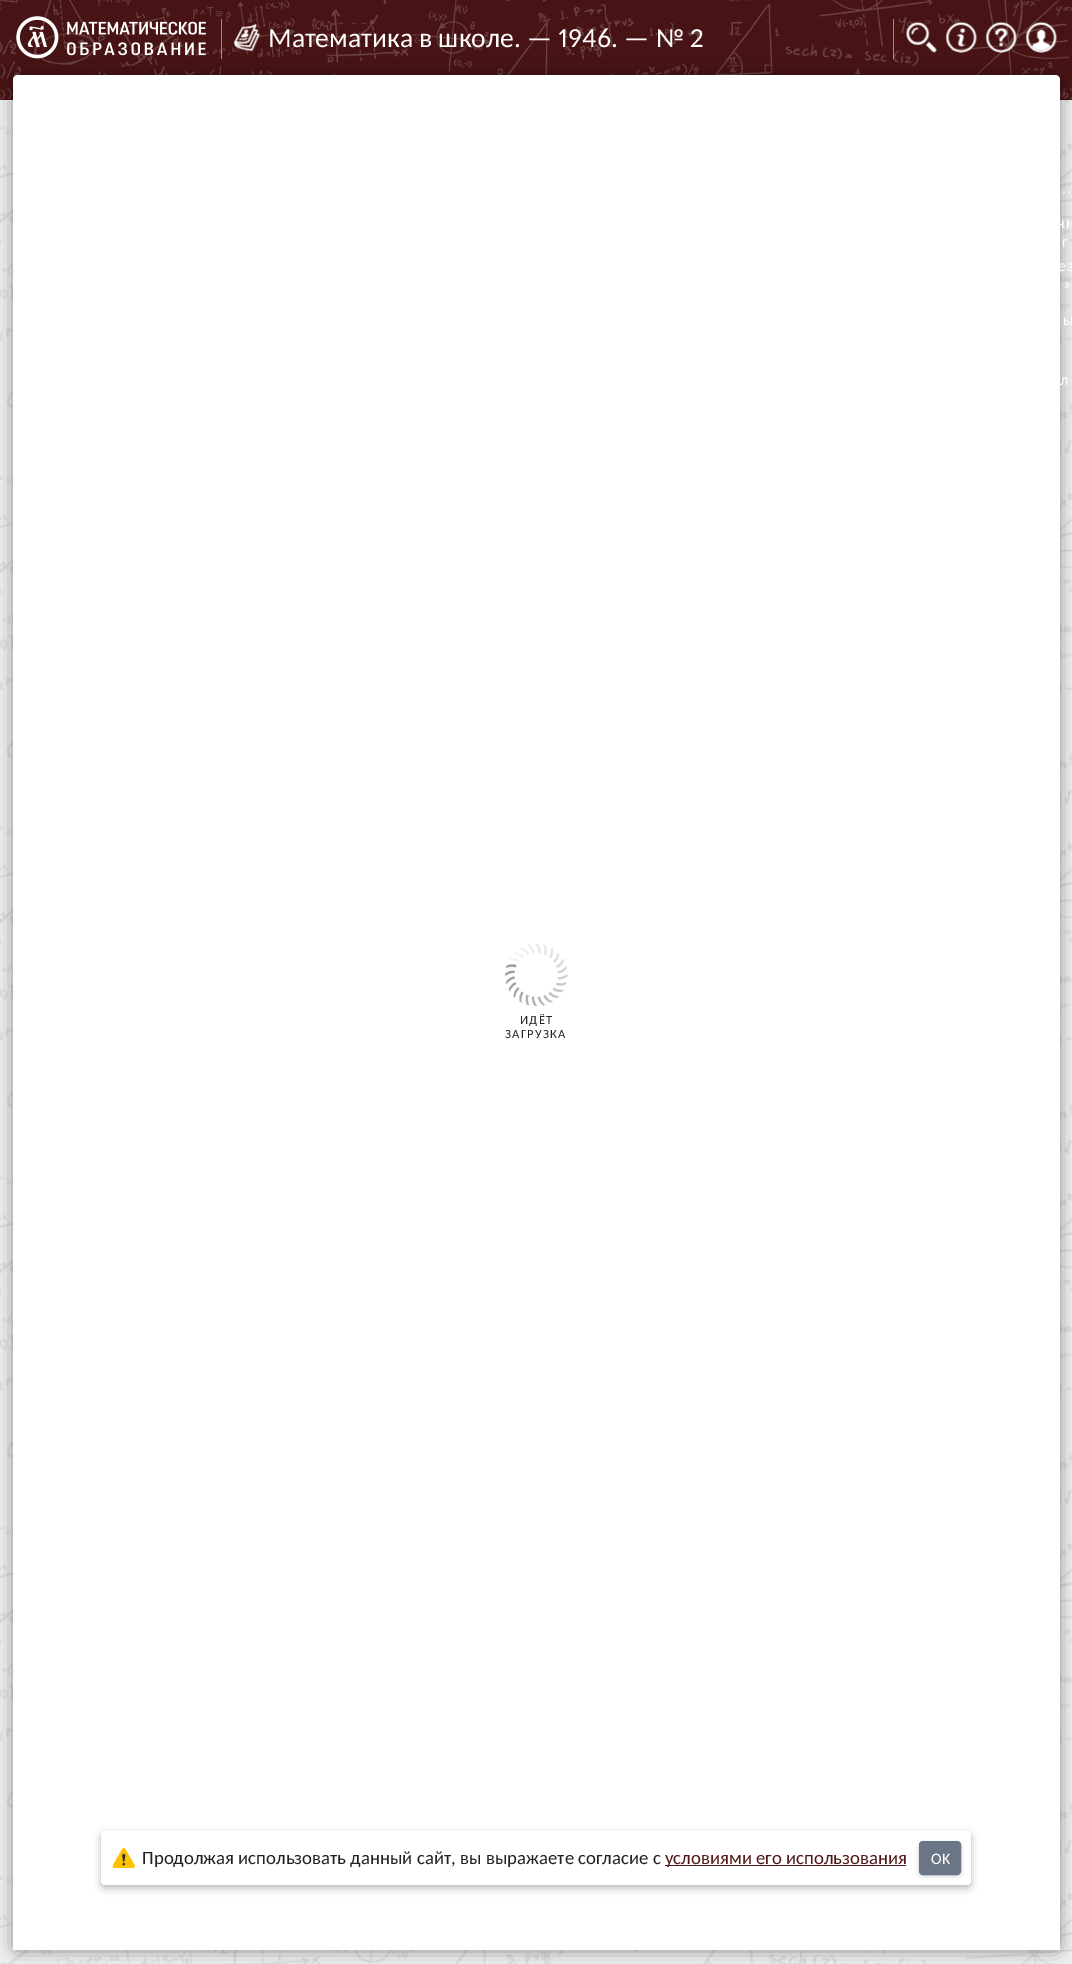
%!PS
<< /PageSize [1072 1964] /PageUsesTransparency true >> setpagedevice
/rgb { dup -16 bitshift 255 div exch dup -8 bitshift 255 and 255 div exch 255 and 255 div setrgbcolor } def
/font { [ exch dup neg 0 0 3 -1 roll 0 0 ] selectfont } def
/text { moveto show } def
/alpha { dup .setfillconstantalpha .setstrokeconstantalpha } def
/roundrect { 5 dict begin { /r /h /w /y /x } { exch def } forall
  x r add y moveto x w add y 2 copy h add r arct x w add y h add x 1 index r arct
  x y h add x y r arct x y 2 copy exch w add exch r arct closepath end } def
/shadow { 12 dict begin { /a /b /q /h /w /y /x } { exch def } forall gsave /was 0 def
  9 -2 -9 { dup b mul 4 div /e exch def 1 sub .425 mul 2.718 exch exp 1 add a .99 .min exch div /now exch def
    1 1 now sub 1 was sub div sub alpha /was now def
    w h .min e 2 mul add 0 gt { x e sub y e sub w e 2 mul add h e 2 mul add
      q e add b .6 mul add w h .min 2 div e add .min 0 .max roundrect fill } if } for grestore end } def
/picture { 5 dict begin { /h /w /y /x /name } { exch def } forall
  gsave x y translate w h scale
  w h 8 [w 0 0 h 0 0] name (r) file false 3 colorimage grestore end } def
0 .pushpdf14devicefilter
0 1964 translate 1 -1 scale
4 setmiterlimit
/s1 { /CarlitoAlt-Regular 27.6 font 16#FFFFFF rgb } def
/s2 { /Carlito-Regular 18.75 font 16#212322 rgb } def
/s3 { /Carlito-Regular 18.75 font 16#4F1717 rgb } def
/s4 { /Carlito-Regular 16 font 16#FFFFFF rgb } def
16#FFFFFF rgb
0 0 1072 1964 rectfill
(pic1.raw) 0 100 1072 1864 picture
(pic2.raw) 0 0 1072 100 picture
(pic3.raw) 16 16 190 43 picture
0.5 alpha
893 19 1 40 rectfill
221 19 1 40 rectfill
1 alpha
(pic4.raw) 234 24 27 28 picture
s1
(Математика в школе. — 1946. — № 2) 268 47 text
(pic5.raw) 906 21 31 32 picture
(pic6.raw) 945 21 32 32 picture
(pic7.raw) 985 21 32 32 picture
16#000000 rgb
13 76 1047 1875 5 8 0.4 shadow
(pic8.raw) 1025 21 32 32 picture
/Carlito-Regular 16 font
16#FFFFFF rgb
1062 193 moveto 1.25 0 (..) ashow
1057 228 moveto 1.25 0 (чн) ashow
1058 271 moveto 1.25 0 (ез) ashow
1063 289 moveto 1.25 0 (») ashow
1063 325 moveto 1.25 0 (ы) ashow
1060 385 moveto 1.25 0 (л) ashow
1062 247 moveto 1.25 0 (г) ashow
18 75 moveto 1055 75 lineto 1058 75 1060 77 1060 80 curveto 1060 1950 lineto 13 1950 lineto 13 80 lineto 13 77 15 75 18 75 curveto closepath fill
(pic9.raw) 505 944 63 62 picture
/Carlito-Regular 12.5 font
16#212322 rgb
520 1024 moveto 1.25 0 (ИДЁТ) ashow
505 1038 moveto 1.25 0 (ЗАГРУЗКА) ashow
16#000000 rgb
101 1834 870 54 4 4 0.3 shadow
16#FFFFFF rgb
101 1831 870 54 4 roundrect fill
(pic10.raw) 112 1848 23 20 picture
s2
(Продолжая использовать данный сайт, вы выражаете согласие с) 142 1864 text
16#4F1717 rgb
665 1865 241 1 rectfill
(условиями его использования) 665 1864 text
16#000000 rgb
919 1843 42 33 4 2 0.2 shadow
16#6A7685 rgb
919.5 1841.5 41 33 3.5 roundrect gsave fill grestore
stroke
s4
(OK) 931 1864 text
.poppdf14devicefilter showpage
